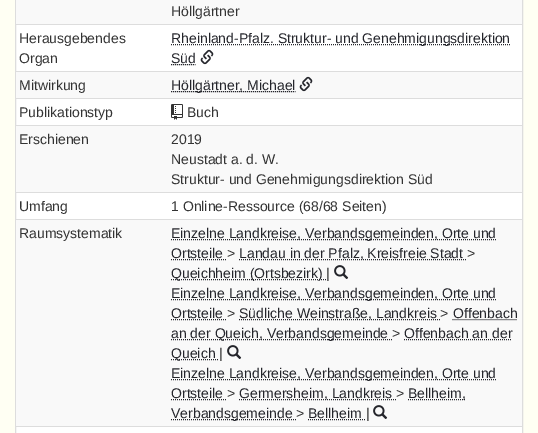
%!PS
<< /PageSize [538 433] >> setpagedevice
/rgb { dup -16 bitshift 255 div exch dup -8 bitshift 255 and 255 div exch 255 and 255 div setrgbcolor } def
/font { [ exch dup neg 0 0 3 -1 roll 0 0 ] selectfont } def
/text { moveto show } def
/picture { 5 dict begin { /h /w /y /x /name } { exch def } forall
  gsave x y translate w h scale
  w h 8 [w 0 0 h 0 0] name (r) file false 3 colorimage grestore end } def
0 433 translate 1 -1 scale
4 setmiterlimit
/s1 { /LiberationSans-Regular 14 font 16#333333 rgb } def
/s2 { /LiberationSans-Regular 14 font 16#24252B rgb } def
16#FFFFF3 rgb
0 0 538 433 rectfill
16#FFFFFF rgb
16 25 506 408 rectfill
16#DDDDDD rgb
15.5 -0.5 507 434 rectstroke
16#F9F9F9 rgb
16 0 506 24 rectfill
s1
(Höllgärtner) 171 16 text
(Herausgebendes) 19 43 text
(Organ) 19 63 text
16#DDDDDD rgb
16 24 507 1 rectfill
16#24252B rgb
[1 1] 0 setdash
171 44.5 moveto 510 44.5 lineto stroke
(Rheinland-Pfalz. Struktur- und Genehmigungsdirektion) 171 43 text
(Süd) 171 63 text
171 64.5 moveto 195.5 64.5 lineto stroke
(pic1.raw) 200 49 14 16 picture
16#F9F9F9 rgb
16 72 506 26 rectfill
s1
(Mitwirkung) 19 90 text
16#DDDDDD rgb
16 71 507 1 rectfill
16#24252B rgb
171 91.5 moveto 295.5 91.5 lineto stroke
(Höllgärtner, Michael) 171 90 text
(pic2.raw) 299 76 14 16 picture
s1
(Publikationstyp) 19 117 text
16#DDDDDD rgb
16 98 507 1 rectfill
(pic3.raw) 171 104 12 16 picture
s1
(Buch) 187 117 text
16#F9F9F9 rgb
16 126 506 66 rectfill
s1
(Erschienen) 19 144 text
16#DDDDDD rgb
16 125 507 1 rectfill
s1
(2019) 171 144 text
(Neustadt a. d. W.) 171 164 text
(Struktur- und Genehmigungsdirektion Süd) 171 184 text
(Umfang) 19 211 text
16#DDDDDD rgb
16 192 507 1 rectfill
s1
(1 Online-Ressource \(68/68 Seiten\)) 171 211 text
16#F9F9F9 rgb
16 220 506 206 rectfill
s1
(Raumsystematik) 19 238 text
16#DDDDDD rgb
16 219 507 1 rectfill
16#24252B rgb
171 239.5 moveto 496 239.5 lineto stroke
(Einzelne Landkreise, Verbandsgemeinden, Orte und) 171 238 text
(Ortsteile) 171 258 text
171 259.5 moveto 227 259.5 lineto stroke
s1
(>) 227 258 text
16#24252B rgb
239 259.5 moveto 467 259.5 lineto stroke
(Landau in der Pfalz, Kreisfreie Stadt) 239 258 text
s1
(>) 467 258 text
16#24252B rgb
171 279.5 moveto 326.5 279.5 lineto stroke
(Queichheim \(Ortsbezirk\)) 171 278 text
s1
(|) 326 278 text
(pic4.raw) 334 265 15 14 picture
16#24252B rgb
171 299.5 moveto 496 299.5 lineto stroke
(Einzelne Landkreise, Verbandsgemeinden, Orte und) 171 298 text
(Ortsteile) 171 318 text
171 319.5 moveto 227 319.5 lineto stroke
s1
(>) 227 318 text
16#24252B rgb
239 319.5 moveto 440.5 319.5 lineto stroke
(Südliche Weinstraße, Landkreis) 239 318 text
s1
(>) 440 318 text
s2
(Offenbach) 453 318 text
452.5 319.5 moveto 517 319.5 lineto stroke
171 339.5 moveto 392 339.5 lineto stroke
(an der Queich, Verbandsgemeinde) 171 338 text
s1
(>) 392 338 text
s2
(Offenbach an der) 404 338 text
404 339.5 moveto 512 339.5 lineto stroke
171 359.5 moveto 219 359.5 lineto stroke
(Queich) 171 358 text
s1
(|) 219 358 text
(pic4.raw) 227 345 15 14 picture
16#24252B rgb
171 379.5 moveto 496 379.5 lineto stroke
(Einzelne Landkreise, Verbandsgemeinden, Orte und) 171 378 text
(Ortsteile) 171 398 text
171 399.5 moveto 227 399.5 lineto stroke
s1
(>) 227 398 text
16#24252B rgb
239 399.5 moveto 396 399.5 lineto stroke
(Germersheim, Landkreis) 239 398 text
s1
(>) 396 398 text
16#24252B rgb
408 399.5 moveto 465.5 399.5 lineto stroke
(Bellheim,) 408 398 text
171 419.5 moveto 296 419.5 lineto stroke
(Verbandsgemeinde) 171 418 text
s1
(>) 296 418 text
s2
(Bellheim) 308 418 text
308 419.5 moveto 366 419.5 lineto stroke
s1
(|) 366 418 text
(pic4.raw) 373 405 15 14 picture
16#DDDDDD rgb
16 426 507 1 rectfill
showpage
